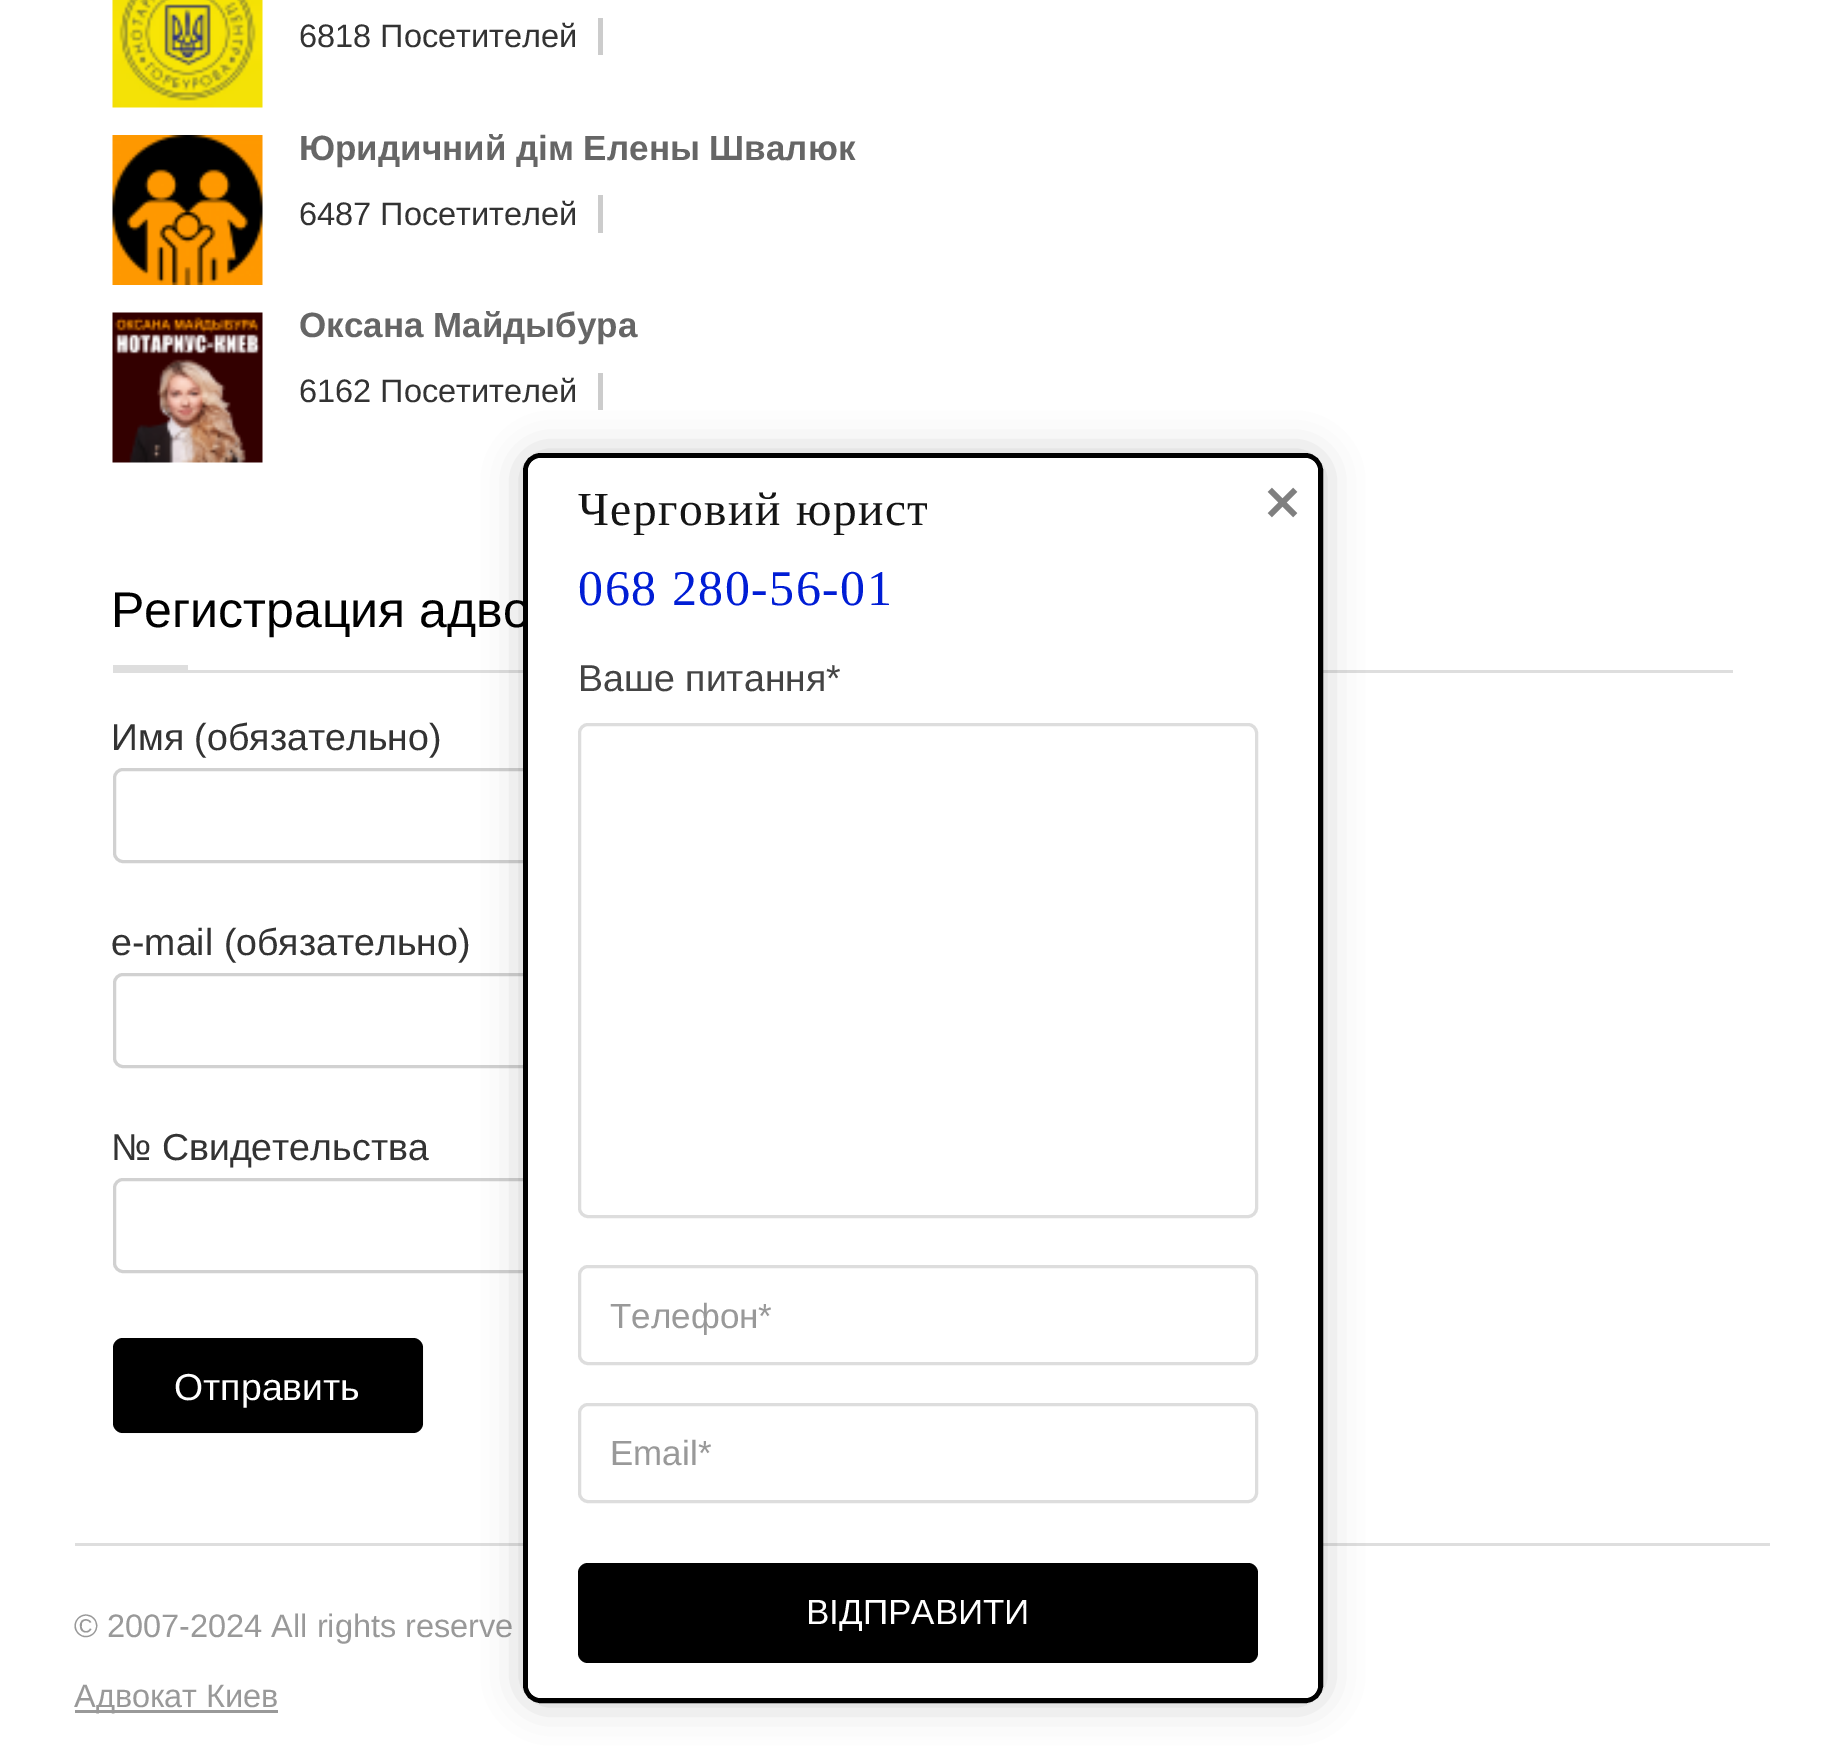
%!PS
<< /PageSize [1844 1757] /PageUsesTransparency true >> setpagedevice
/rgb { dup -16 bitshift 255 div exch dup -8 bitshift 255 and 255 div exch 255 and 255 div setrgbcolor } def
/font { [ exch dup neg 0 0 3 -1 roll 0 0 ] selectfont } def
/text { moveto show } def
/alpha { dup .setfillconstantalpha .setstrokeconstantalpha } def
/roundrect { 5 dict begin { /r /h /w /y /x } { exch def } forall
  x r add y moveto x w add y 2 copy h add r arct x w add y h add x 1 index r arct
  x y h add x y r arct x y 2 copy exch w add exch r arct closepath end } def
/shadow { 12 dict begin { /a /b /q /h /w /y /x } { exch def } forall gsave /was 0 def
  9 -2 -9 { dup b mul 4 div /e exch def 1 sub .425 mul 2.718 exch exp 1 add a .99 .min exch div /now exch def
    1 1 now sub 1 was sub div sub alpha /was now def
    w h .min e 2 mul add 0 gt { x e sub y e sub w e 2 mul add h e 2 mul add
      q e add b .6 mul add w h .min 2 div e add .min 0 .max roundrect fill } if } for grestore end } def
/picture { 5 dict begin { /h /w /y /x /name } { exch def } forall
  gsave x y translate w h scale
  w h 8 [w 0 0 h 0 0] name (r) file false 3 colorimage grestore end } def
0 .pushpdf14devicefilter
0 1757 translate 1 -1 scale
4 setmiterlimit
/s1 { /LiberationSans-Regular 32.5 font 16#333333 rgb } def
/s2 { /LiberationSans-Bold 35 font 16#666666 rgb } def
/s3 { /LiberationSans-Regular 50 font 16#000000 rgb } def
/s4 { /LiberationSans-Regular 37.5 font 16#333333 rgb } def
/s5 { /LiberationSans-Regular 37.5 font 16#FFFFFF rgb } def
/s6 { /LiberationSans-Regular 32.5 font 16#999999 rgb } def
/s7 { /LiberationSans-Regular 37.5 font 16#444444 rgb } def
/s8 { /LiberationSans-Regular 35 font 16#999999 rgb } def
/s9 { /LiberationSans-Regular 35 font 16#FFFFFF rgb } def
16#FFFFFF rgb
0 0 1844 1757 rectfill
(pic1.raw) 112 0 151 108 picture
s1
(6818 Посетителей) 299 47 text
16#CCCCCC rgb
598 18 5 37 rectfill
(pic2.raw) 112 135 151 150 picture
s2
(Юридичний дім Елены Швалюк) 299 160 text
s1
(6487 Посетителей) 299 225 text
16#CCCCCC rgb
598 195 5 38 rectfill
(pic3.raw) 112 312 151 151 picture
s2
(Оксана Майдыбура) 299 337 text
s1
(6162 Посетителей) 299 402 text
16#CCCCCC rgb
598 373 5 37 rectfill
16#DEDEDE rgb
113 670 1620 3 rectfill
s3
(Регистрация адво) 111 627 text
16#DEDEDE rgb
113 665 75 5 rectfill
s4
(Имя \(обязательно\)) 111 750 text
16#D1D1D1 rgb
3 setlinewidth
114.5 769.5 919 92 8.5 roundrect stroke
s4
(e-mail \(обязательно\)) 111 955 text
16#D1D1D1 rgb
114.5 974.5 919 92 8.5 roundrect stroke
s4
(№ Свидетельства) 111 1160 text
16#D1D1D1 rgb
114.5 1179.5 919 92 8.5 roundrect stroke
16#000000 rgb
113 1338 310 95 10 roundrect fill
0.1 alpha
114.5 1339.5 307 92 8.5 roundrect stroke
1 alpha
s5
(Отправить) 174 1400 text
16#DEDEDE rgb
75 1543 1695 3 rectfill
s6
(© 2007-2024 All rights reserve) 74 1637 text
75 1710 203 3 rectfill
(Адвокат Киев) 74 1707 text
16#000000 rgb
523 453 800 1250 18 19 0.2 shadow
5 setlinewidth
525.5 455.5 795 1245 15.5 roundrect stroke
16#FFFFFF rgb
528 458 790 1240 13 roundrect fill
/LiberationSerif-Regular 47.5 font
16#151515 rgb
578 525 moveto 1.5 0 (Черговий юрист) ashow
/LiberationSerif-Regular 50 font
16#001DD5 rgb
578 605 moveto 1.5 0 (068 280-56-01) ashow
s7
(Ваше питання*) 578 691 text
16#DDDDDD rgb
3 setlinewidth
579.5 724.5 677 492 8.5 roundrect stroke
579.5 1266.5 677 97 8.5 roundrect stroke
gsave
610 1295 615 40 rectclip
s8
(Телефон*) 610 1328 text
grestore
579.5 1404.5 677 97 8.5 roundrect stroke
s8
(Email*) 610 1465 text
16#000000 rgb
578 1563 680 100 10 roundrect fill
s9
(ВІДПРАВИТИ) 806 1624 text
(pic4.raw) 1267 487 31 31 picture
.poppdf14devicefilter showpage
